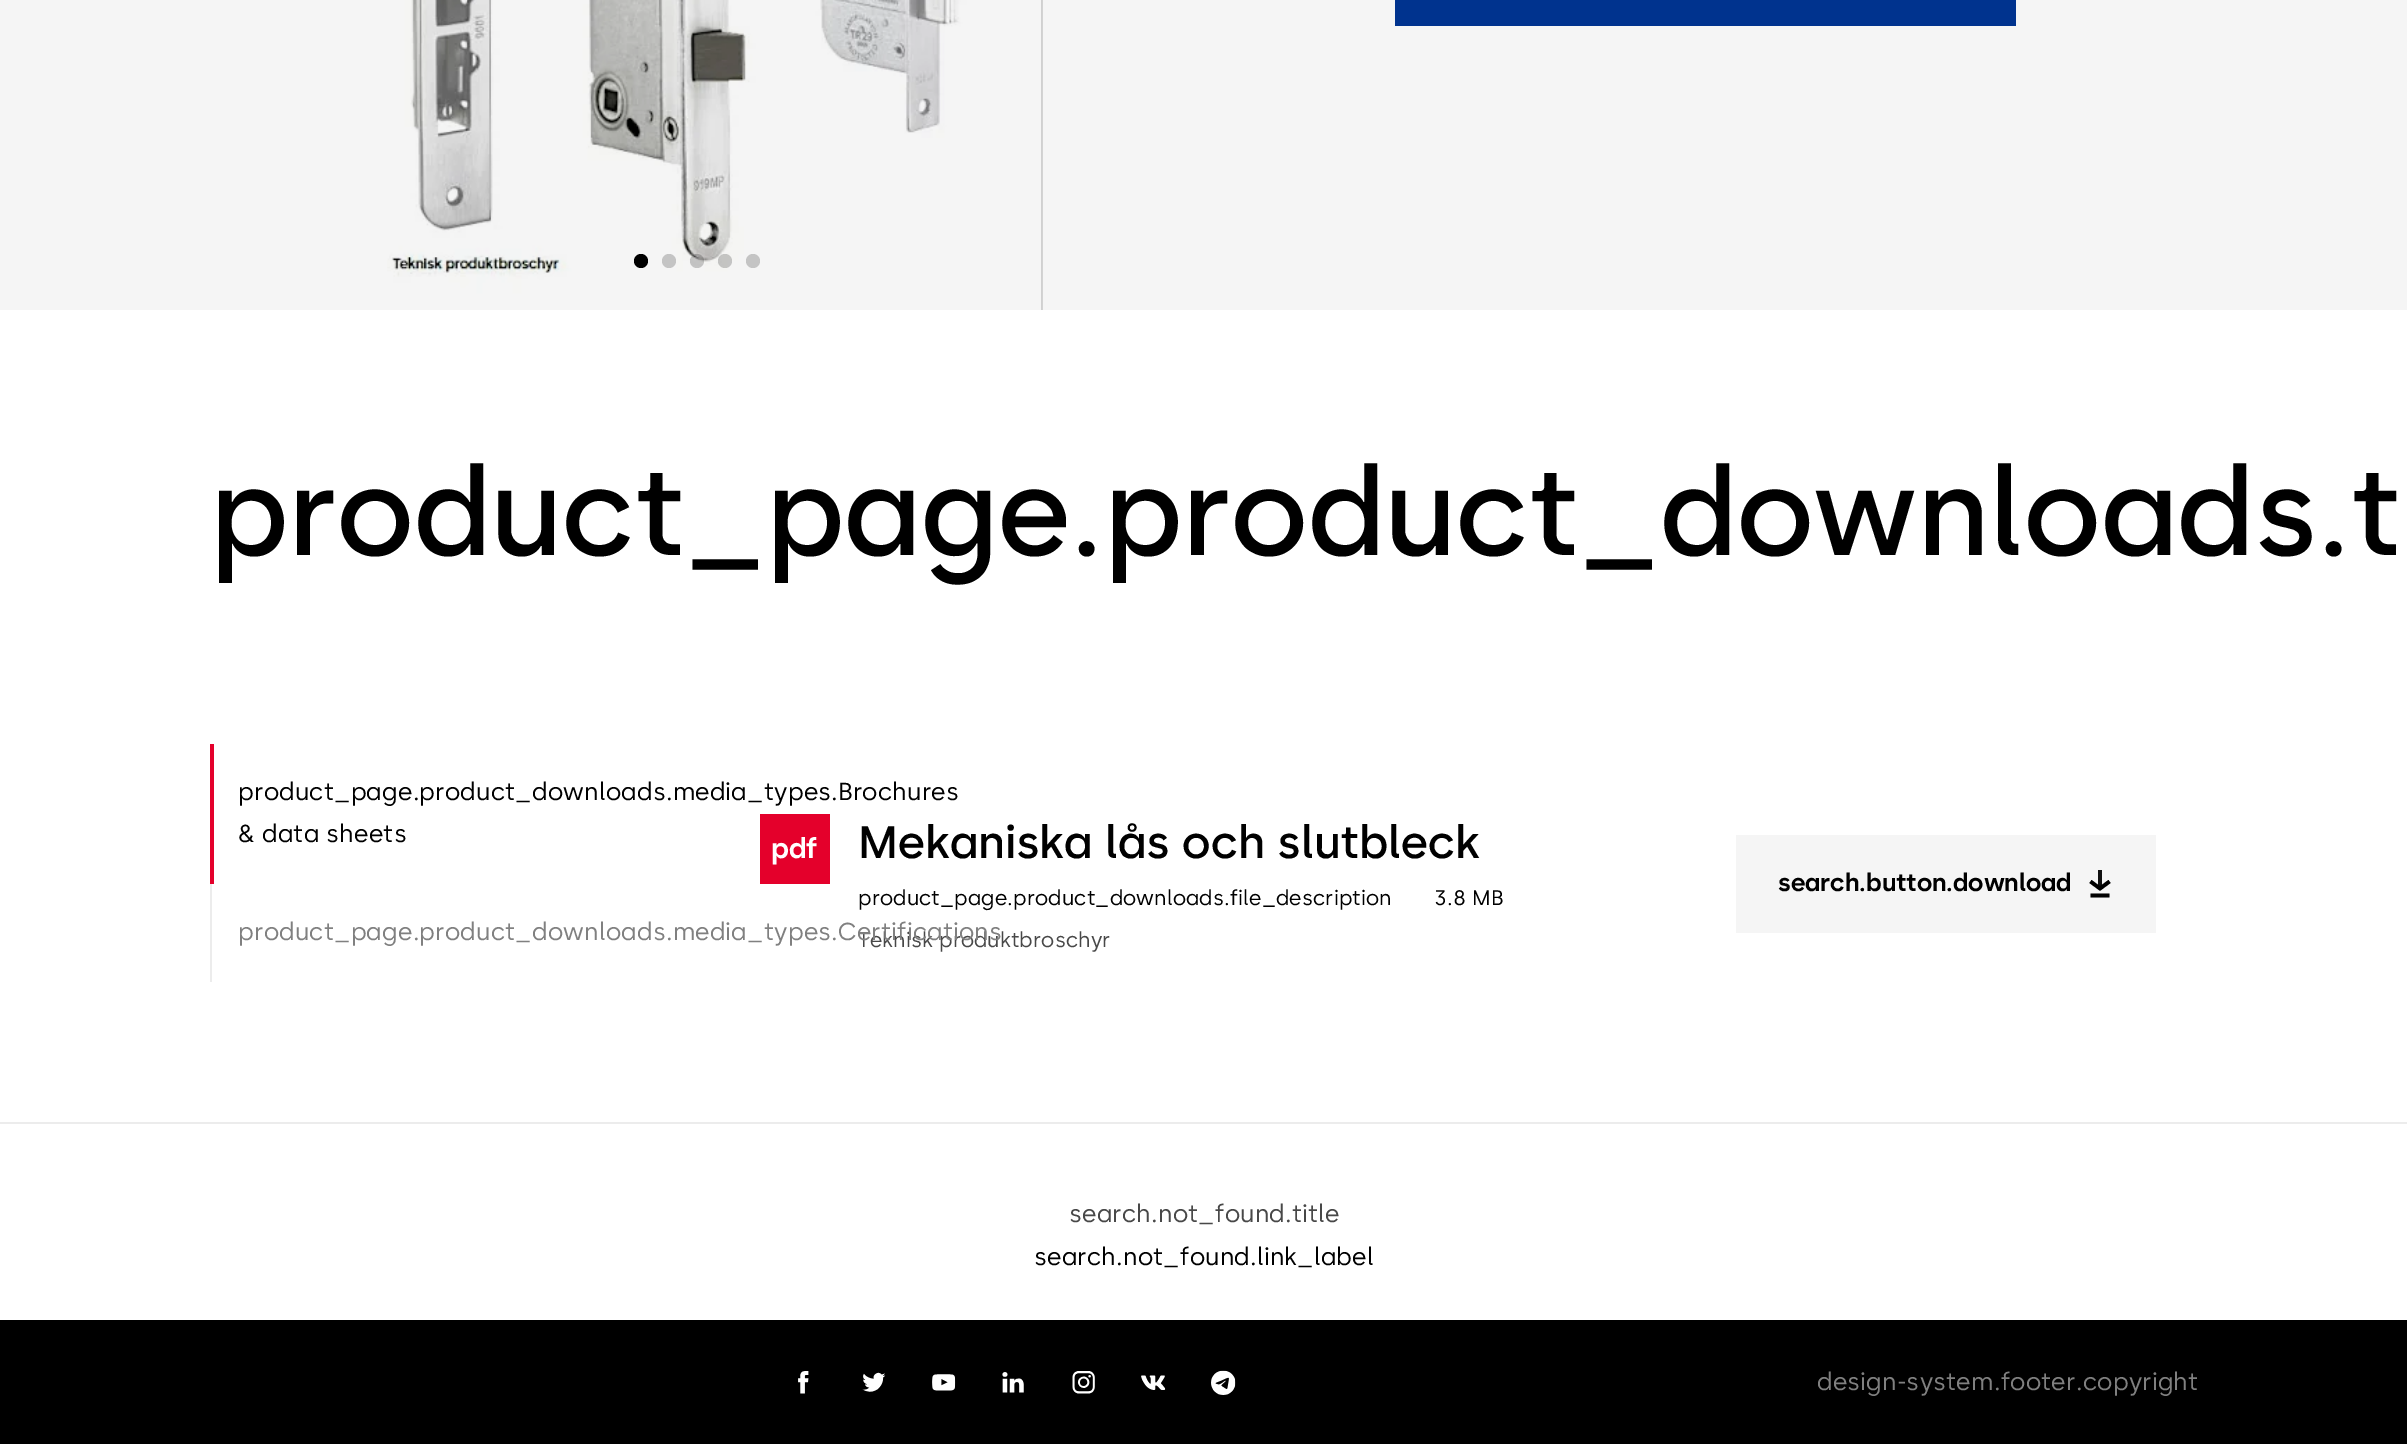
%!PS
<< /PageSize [2407 1444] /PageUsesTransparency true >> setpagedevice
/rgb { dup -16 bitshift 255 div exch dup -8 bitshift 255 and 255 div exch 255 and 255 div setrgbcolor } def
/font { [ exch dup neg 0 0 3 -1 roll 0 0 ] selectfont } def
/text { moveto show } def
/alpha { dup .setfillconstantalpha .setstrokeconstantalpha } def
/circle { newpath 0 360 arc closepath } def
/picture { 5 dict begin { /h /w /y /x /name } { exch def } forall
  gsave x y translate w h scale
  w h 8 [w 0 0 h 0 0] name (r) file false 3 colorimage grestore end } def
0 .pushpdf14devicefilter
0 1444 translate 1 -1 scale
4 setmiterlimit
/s1 { /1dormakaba-SemiBold 122.5 font 16#000000 rgb } def
/s2 { /1dormakaba-Bold 28 font 16#FFFFFF rgb } def
/s3 { /1dormakaba-SemiBold 45.5 font 16#000000 rgb } def
/s4 { /1dormakaba-Bold 24.5 font 16#000000 rgb } def
16#FFFFFF rgb
0 0 2407 1444 rectfill
16#F5F5F5 rgb
0 0 2407 310 rectfill
(pic1.raw) 387 0 656 310 picture
16#000000 rgb
641 261 7 circle fill
16#C4C4C4 rgb
669 261 7 circle fill
0.2 alpha
16#000000 rgb
697 261 7 circle fill
725 261 7 circle fill
1 alpha
16#C4C4C4 rgb
753 261 7 circle fill
16#00338E rgb
1395 0 621 26 rectfill
s1
(product_page.product_downloads.t) 210 555 text
16#E4002B rgb
210 744 4 140 rectfill
/1dormakaba-Regular 24.5 font
16#000000 rgb
238 800 moveto 0.25 0 (product_page.product_downloads.media_types.Brochures) ashow
238 842 moveto 0.25 0 (& data sheets) ashow
16#ECECEC rgb
210 884 2 98 rectfill
/1dormakaba-Regular 21 font
16#484848 rgb
858 947 moveto 0.2 0 (Teknisk produktbroschyr) ashow
/1dormakaba-Regular 24.5 font
16#808080 rgb
238 940 moveto 0.25 0 (product_page.product_downloads.media_types.Certifications) ashow
16#E4002B rgb
760 814 70 70 rectfill
s2
(pdf) 771 858 text
s3
(Mekaniska lås och slutbleck) 858 858 text
/1dormakaba-Regular 21 font
858 905 moveto 0.2 0 (product_page.product_downloads.file_description) ashow
1434 905 moveto 0.2 0 (3.8 MB) ashow
16#F5F5F5 rgb
1736 835 420 98 rectfill
s4
(search.button.download) 1778 891 text
3.7 setlinewidth
2109.5 881.5 moveto 2100 888.5 lineto 2090.5 881.5 lineto 2109.5 895.5 moveto 2090.5 895.5 lineto stroke
0.93 alpha
2098 870 4 19 rectfill
1 alpha
16#ECECEC rgb
0 1122 2407 2 rectfill
/1dormakaba-Regular 24.5 font
16#484848 rgb
1069 1222 moveto 0.25 0 (search.not_found.title) ashow
16#000000 rgb
1034 1265 moveto 0.25 0 (search.not_found.link_label) ashow
0 1320 2407 124 rectfill
(pic2.raw) 798 1371 11 23 picture
(pic3.raw) 862 1372 24 20 picture
(pic4.raw) 932 1374 24 17 picture
(pic5.raw) 1002 1372 22 21 picture
(pic6.raw) 1072 1371 23 23 picture
(pic7.raw) 1141 1375 25 15 picture
(pic8.raw) 1211 1370 25 25 picture
16#808080 rgb
1817 1390 moveto 0.25 0 (design-system.footer.copyright) ashow
.poppdf14devicefilter showpage
